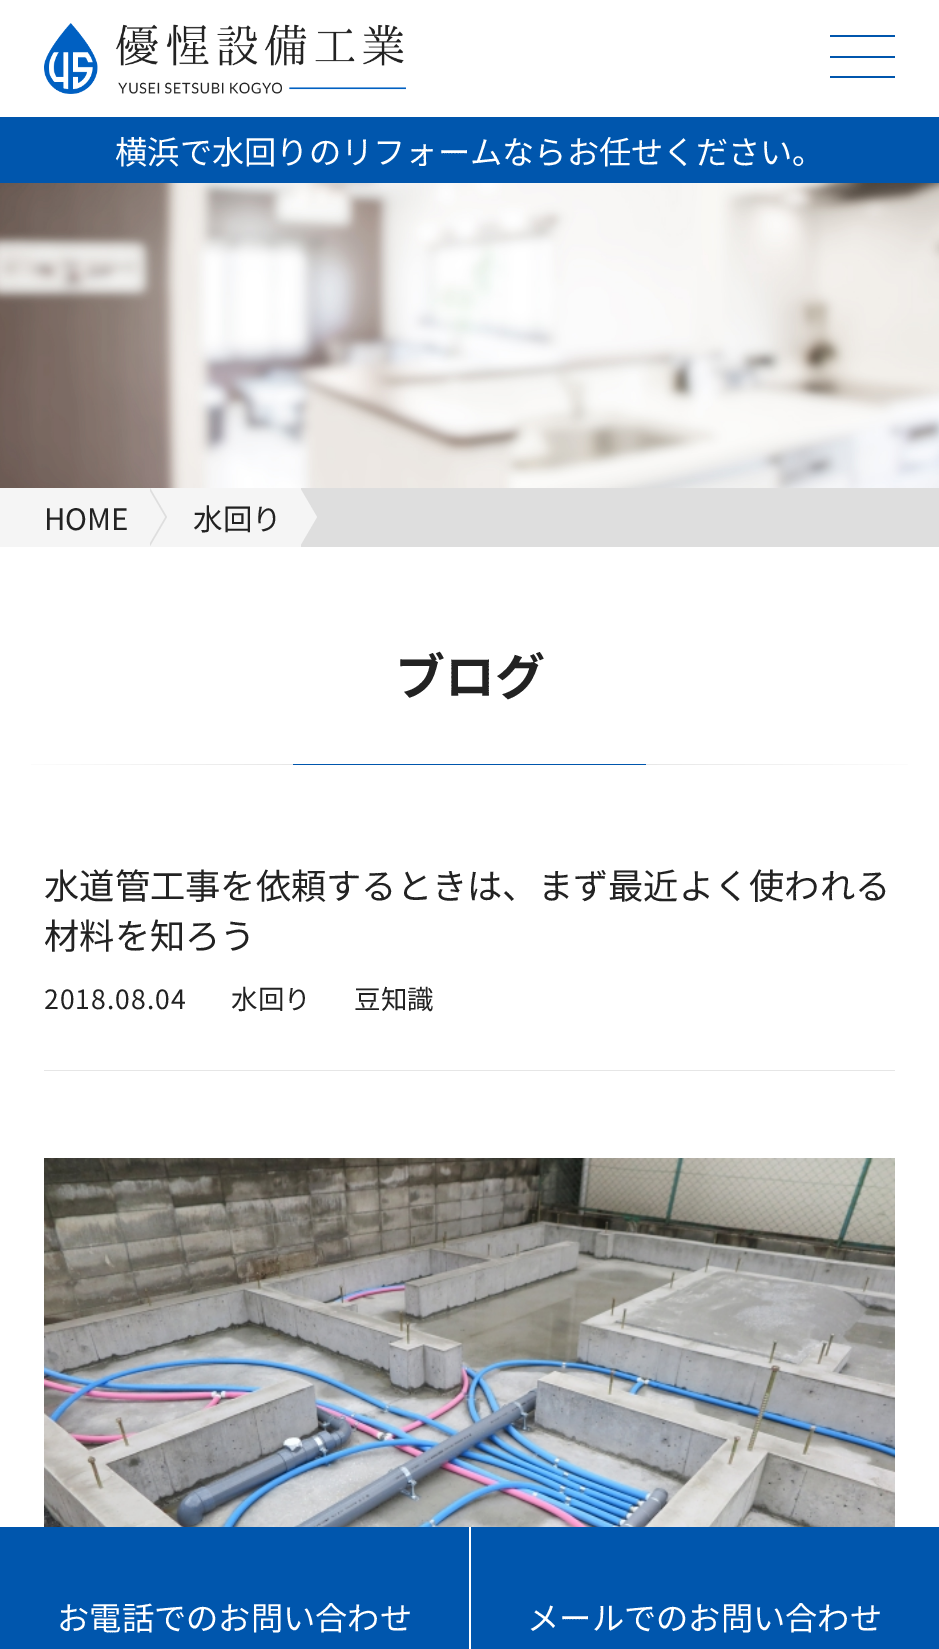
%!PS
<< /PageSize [939 1649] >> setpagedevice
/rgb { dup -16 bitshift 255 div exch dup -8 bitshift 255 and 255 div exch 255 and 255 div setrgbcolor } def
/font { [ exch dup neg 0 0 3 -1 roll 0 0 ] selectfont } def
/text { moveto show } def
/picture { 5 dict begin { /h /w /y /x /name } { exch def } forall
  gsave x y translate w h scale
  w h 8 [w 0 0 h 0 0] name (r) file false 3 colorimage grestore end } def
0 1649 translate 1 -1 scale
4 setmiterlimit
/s1 { /NotoSansJP-Regular 32.25 font 16#FFFFFF rgb } def
/s2 { /NotoSansJP-Regular 29.5 font 16#222222 rgb } def
/s3 { /NotoSansJP-Bold 50 font 16#222222 rgb } def
/s4 { /NotoSansJP-Regular 35.25 font 16#222222 rgb } def
/s5 { /NotoSansJP-Regular 26.5 font 16#222222 rgb } def
16#FFFFFF rgb
0 0 939 1649 rectfill
16#0056AD rgb
830 35 65 2 rectfill
830 56 65 2 rectfill
830 76 65 2 rectfill
(pic1.raw) 44 23 362 71 picture
0 117 939 66 rectfill
s1
(横浜で水回りのリフォームならお任せください。) 115 164 text
(pic2.raw) 0 183 939 305 picture
16#DEDEDE rgb
301 488 638 59 rectfill
16#F5F5F5 rgb
0 488 301 59 rectfill
16#DEDEDE rgb
150 546 moveto 150 488 lineto 167 517 lineto closepath fill
16#F5F5F5 rgb
148 546 moveto 148 488 lineto 165 517 lineto closepath fill
s2
(HOME) 44 530 text
(水回り) 193 530 text
16#F5F5F5 rgb
300 546 moveto 300 488 lineto 317 517 lineto closepath fill
s3
(ブログ) 395 695 text
gsave 31 764 moveto 908 764 lineto 908 765 lineto 31 765 lineto closepath clip newpath
<< /ShadingType 2 /ColorSpace /DeviceRGB /Coords [0 765 939 765] /Extend [true true] /Function << /FunctionType 3 /Domain [0 1] /Functions [<< /FunctionType 2 /Domain [0 1] /C0 [1 1 1] /C1 [0.851 0.851 0.851] /N 1 >> << /FunctionType 2 /Domain [0 1] /C0 [0.851 0.851 0.851] /C1 [1 1 1] /N 1 >>] /Bounds [0.5] /Encode [0 1 0 1] >> >> shfill grestore
16#0056AD rgb
293 764 353 1 rectfill
16#E6E6E6 rgb
44 1070 851 1 rectfill
s4
(水道管工事を依頼するときは、まず最近よく使われる) 44 899 text
(材料を知ろう) 44 949 text
/NotoSansJP-Regular 26.5 font
44 1009 moveto 1 0 (2018.08.04) ashow
(水回り) 231 1009 text
(豆知識) 354 1009 text
(pic3.raw) 44 1158 851 369 picture
16#0056AD rgb
0 1527 469 122 rectfill
s1
(お電話でのお問い合わせ) 57 1630 text
16#0056AD rgb
471 1527 468 122 rectfill
s1
(メールでのお問い合わせ) 527 1630 text
showpage
